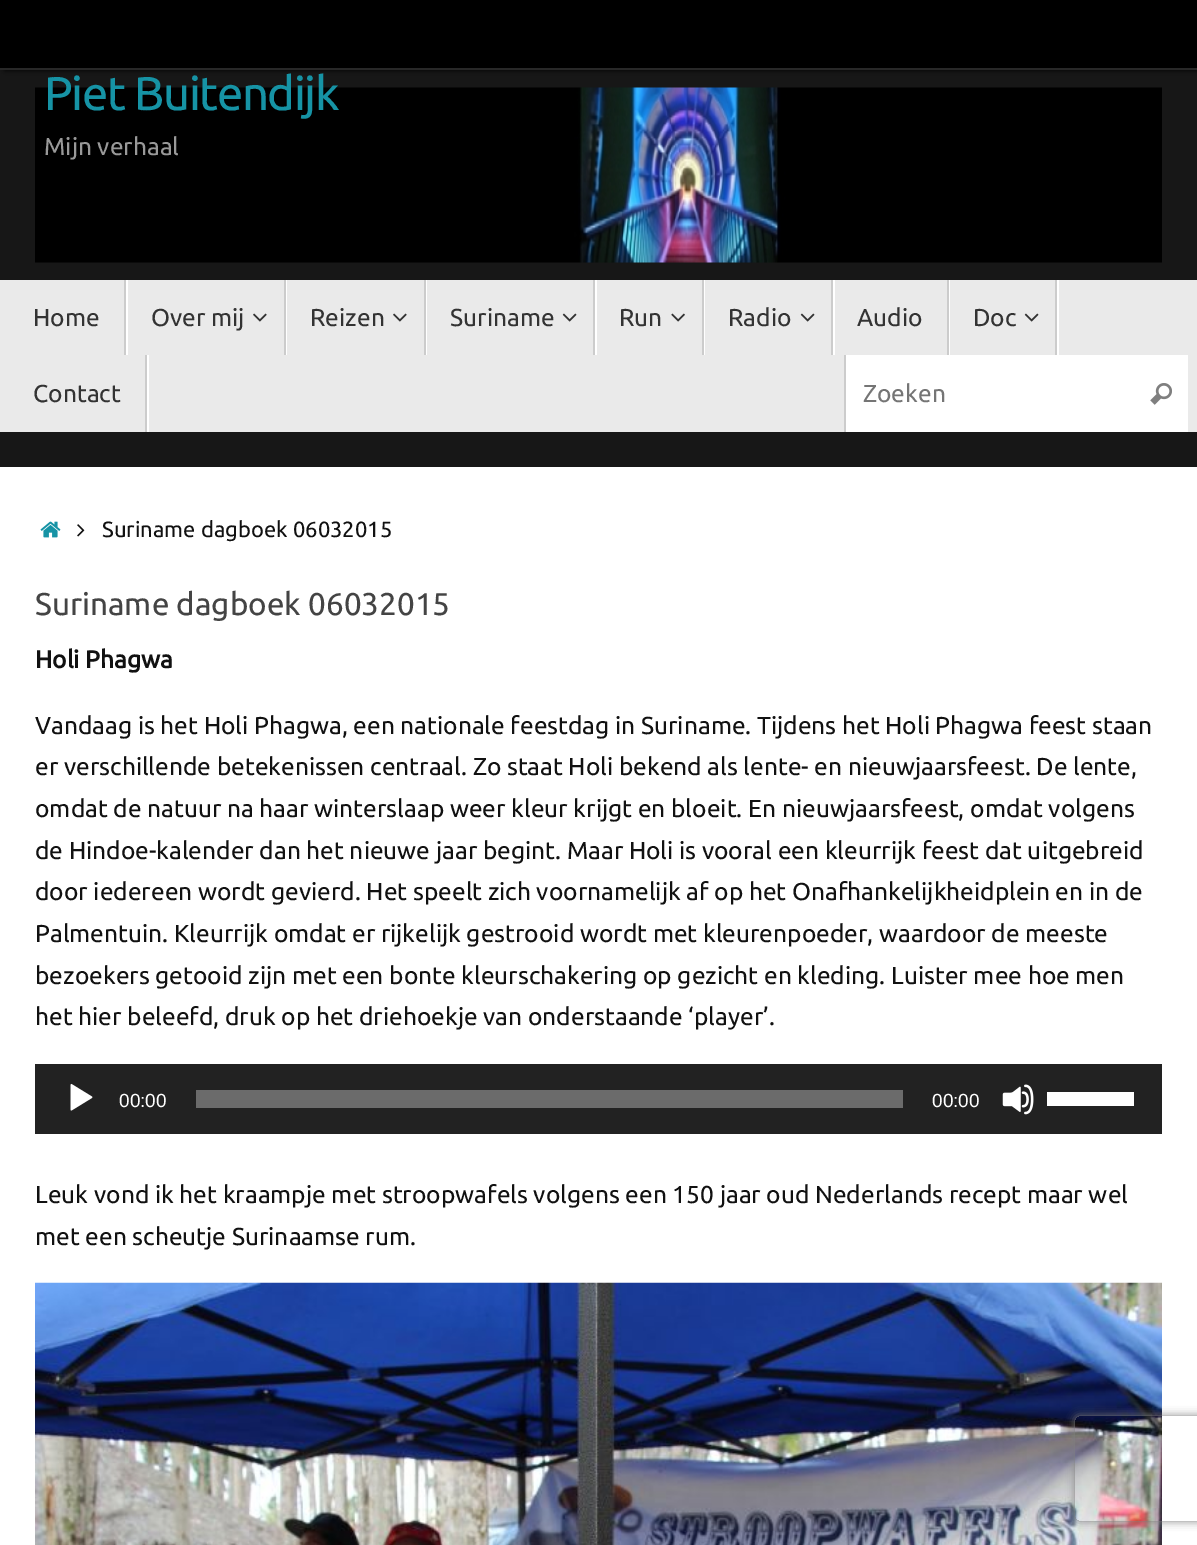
%!PS
<< /PageSize [1197 1545] /PageUsesTransparency true >> setpagedevice
/rgb { dup -16 bitshift 255 div exch dup -8 bitshift 255 and 255 div exch 255 and 255 div setrgbcolor } def
/font { [ exch dup neg 0 0 3 -1 roll 0 0 ] selectfont } def
/text { moveto show } def
/alpha { dup .setfillconstantalpha .setstrokeconstantalpha } def
/roundrect { 5 dict begin { /r /h /w /y /x } { exch def } forall
  x r add y moveto x w add y 2 copy h add r arct x w add y h add x 1 index r arct
  x y h add x y r arct x y 2 copy exch w add exch r arct closepath end } def
/shadow { 12 dict begin { /a /b /q /h /w /y /x } { exch def } forall gsave /was 0 def
  9 -2 -9 { dup b mul 4 div /e exch def 1 sub .425 mul 2.718 exch exp 1 add a .99 .min exch div /now exch def
    1 1 now sub 1 was sub div sub alpha /was now def
    w h .min e 2 mul add 0 gt { x e sub y e sub w e 2 mul add h e 2 mul add
      q e add b .6 mul add w h .min 2 div e add .min 0 .max roundrect fill } if } for grestore end } def
/picture { 5 dict begin { /h /w /y /x /name } { exch def } forall
  gsave x y translate w h scale
  w h 8 [w 0 0 h 0 0] name (r) file false 3 colorimage grestore end } def
0 .pushpdf14devicefilter
0 1545 translate 1 -1 scale
4 setmiterlimit
/s1 { /Ubuntu-Regular 24.5 font 16#999999 rgb } def
/s2 { /Ubuntu-Regular 24.5 font 16#333333 rgb } def
/s3 { /Ubuntu-Regular 24.5 font 16#757575 rgb } def
/s4 { /Ubuntu-Regular 22 font 16#111111 rgb } def
/s5 { /Ubuntu-Regular 31.5 font 16#444444 rgb } def
/s6 { /Ubuntu-Bold 24.5 font 16#111111 rgb } def
/s7 { /Ubuntu-Regular 24.5 font 16#111111 rgb } def
/s8 { /LiberationSans-Regular 19 font 16#FFFFFF rgb } def
16#171717 rgb
0 0 1197 1545 rectfill
16#000000 rgb
5 0 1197 70 0 2.5 1 shadow
0 0 1197 68 rectfill
16#282828 rgb
0 68 1197 2 rectfill
(pic1.raw) 35 87 1127 176 picture
/Ubuntu-Regular 47.25 font
16#1693A5 rgb
44 110 moveto -1.4 0 (Piet Buitendijk) ashow
s1
(Mijn verhaal) 44 155 text
16#EAEAEA rgb
0 280 1197 152 rectfill
16#FFFFFF rgb
126 280 2 75 rectfill
16#CCCCCC rgb
124 280 2 75 rectfill
s2
(Home) 33 326 text
16#FFFFFF rgb
286 280 1 75 rectfill
16#CCCCCC rgb
284 280 2 75 rectfill
s2
(Over mij) 151 326 text
(pic2.raw) 253 313 14 9 picture
16#FFFFFF rgb
426 280 1 75 rectfill
16#CCCCCC rgb
424 280 2 75 rectfill
s2
(Reizen) 310 326 text
(pic2.raw) 393 313 14 9 picture
16#FFFFFF rgb
595 280 2 75 rectfill
16#CCCCCC rgb
593 280 2 75 rectfill
s2
(Suriname) 450 326 text
(pic3.raw) 562 313 15 9 picture
16#FFFFFF rgb
704 280 1 75 rectfill
16#CCCCCC rgb
702 280 2 75 rectfill
s2
(Run) 619 326 text
(pic4.raw) 671 313 14 9 picture
16#FFFFFF rgb
833 280 2 75 rectfill
16#CCCCCC rgb
831 280 2 75 rectfill
s2
(Radio) 728 326 text
(pic3.raw) 800 313 15 9 picture
16#FFFFFF rgb
949 280 1 75 rectfill
16#CCCCCC rgb
947 280 2 75 rectfill
s2
(Audio) 857 326 text
16#FFFFFF rgb
1057 280 2 75 rectfill
16#CCCCCC rgb
1055 280 2 75 rectfill
s2
(Doc) 973 326 text
(pic3.raw) 1024 313 15 9 picture
16#FFFFFF rgb
11 355 moveto 147 355 lineto 147 432 lineto 149 432 lineto 149 355 lineto closepath fill
16#CCCCCC rgb
145 355 2 77 rectfill
s2
(Contact) 33 402 text
16#FFFFFF rgb
846 355 342 77 rectfill
16#CCCCCC rgb
844 355 2 77 rectfill
s3
(Zoeken) 863 402 text
(pic5.raw) 1150 383 22 22 picture
16#FFFFFF rgb
0 467 1197 1078 rectfill
(pic6.raw) 40 521 21 17 picture
(pic7.raw) 77 524 8 13 picture
s4
(Suriname dagboek 06032015) 102 537 text
s5
(Suriname dagboek 06032015) 35 615 text
s6
(Holi Phagwa) 35 668 text
s7
(Vandaag is het Holi Phagwa, een nationale feestdag in Suriname. Tijdens het Holi Phagwa feest staan) 35 734 text
(er verschillende betekenissen centraal. Zo staat Holi bekend als lente- en nieuwjaarsfeest. De lente,) 35 775 text
(omdat de natuur na haar winterslaap weer kleur krijgt en bloeit. En nieuwjaarsfeest, omdat volgens) 35 817 text
(de Hindoe-kalender dan het nieuwe jaar begint. Maar Holi is vooral een kleurrijk feest dat uitgebreid) 35 859 text
(door iedereen wordt gevierd. Het speelt zich voornamelijk af op het Onafhankelijkheidplein en in de) 35 900 text
(Palmentuin. Kleurrijk omdat er rijkelijk gestrooid wordt met kleurenpoeder, waardoor de meeste) 35 942 text
(bezoekers getooid zijn met een bonte kleurschakering op gezicht en kleding. Luister mee hoe men) 35 984 text
(het hier beleefd, druk op het driehoekje van onderstaande ‘player’.) 35 1025 text
16#222222 rgb
35 1064 1127 70 rectfill
(pic8.raw) 70 1083 23 28 picture
s8
(00:00) 119 1107 text
16#6B6B6B rgb
196 1090 707 18 rectfill
s8
(00:00) 932 1107 text
(pic9.raw) 1002 1084 32 31 picture
1047 1092 87 14 rectfill
s7
(Leuk vond ik het kraampje met stroopwafels volgens een 150 jaar oud Nederlands recept maar wel) 35 1203 text
(met een scheutje Surinaamse rum.) 35 1245 text
(pic10.raw) 35 1282 1127 263 picture
gsave
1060 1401 moveto 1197 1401 lineto 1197 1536 lineto 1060 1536 lineto closepath 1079 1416 moveto 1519 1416 lineto 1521 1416 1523 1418 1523 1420 curveto 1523 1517 lineto 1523 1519 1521 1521 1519 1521 curveto 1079 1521 lineto 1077 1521 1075 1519 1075 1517 curveto 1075 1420 lineto 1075 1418 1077 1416 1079 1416 curveto closepath eoclip newpath
16#808080 rgb
1075 1416 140 105 4 4.5 1 shadow
grestore
.poppdf14devicefilter showpage
